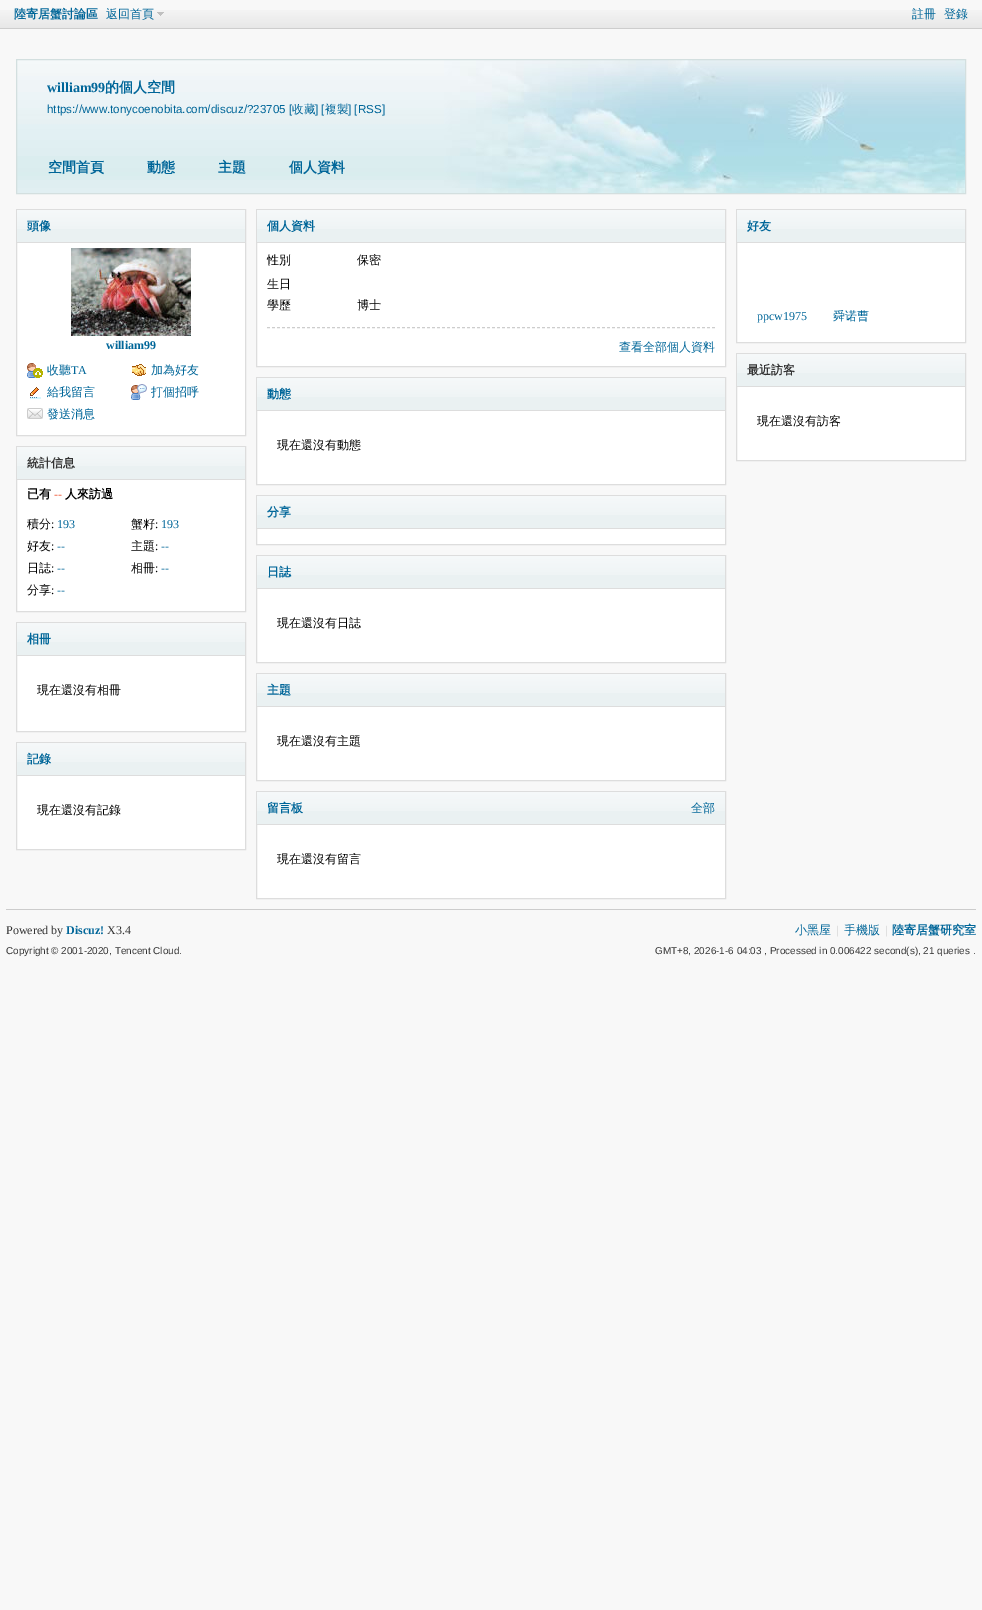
%!PS
<< /PageSize [982 1610] >> setpagedevice
/rgb { dup -16 bitshift 255 div exch dup -8 bitshift 255 and 255 div exch 255 and 255 div setrgbcolor } def
/font { [ exch dup neg 0 0 3 -1 roll 0 0 ] selectfont } def
/text { moveto show } def
/picture { 5 dict begin { /h /w /y /x /name } { exch def } forall
  gsave x y translate w h scale
  w h 8 [w 0 0 h 0 0] name (r) file false 3 colorimage grestore end } def
0 1610 translate 1 -1 scale
4 setmiterlimit
/s1 { /WenQuanYiZenHei-Bold 12 font 16#006699 rgb } def
/s2 { /WenQuanYiZenHei-Medium 12 font 16#006699 rgb } def
/s3 { /LiberationSerif-Bold 14 font 16#006699 rgb } def
/s4 { /WenQuanYiZenHei-Bold 14 font 16#006699 rgb } def
/s5 { /LiberationSans-Regular 11.6 font 16#006699 rgb } def
/s6 { /WenQuanYiZenHei-Medium 11.6 font 16#006699 rgb } def
/s7 { /LiberationSerif-Bold 12 font 16#006699 rgb } def
/s8 { /LiberationSerif-Regular 12 font 16#006699 rgb } def
/s9 { /WenQuanYiZenHei-Bold 12 font 16#333333 rgb } def
/s10 { /WenQuanYiZenHei-Bold 12 font 16#000000 rgb } def
/s11 { /LiberationSerif-Bold 12 font 16#F26C4F rgb } def
/s12 { /WenQuanYiZenHei-Medium 12 font 16#000000 rgb } def
/s13 { /LiberationSerif-Regular 12 font 16#000000 rgb } def
/s14 { /LiberationSerif-Regular 12 font 16#333333 rgb } def
/s15 { /LiberationSans-Regular 9.95 font 16#333333 rgb } def
/s16 { /LiberationSerif-Regular 12 font 16#CCCCCC rgb } def
16#F8F8F8 rgb
0 0 982 1610 rectfill
(pic1.raw) 0 10 982 18 picture
16#CDCDCD rgb
0 28 982 1 rectfill
s1
(陸寄居蟹討論區) 14 18 text
(pic2.raw) 157 12 7 4 picture
s2
(返回首頁) 106 18 text
(註冊) 912 18 text
(登錄) 944 18 text
(pic3.raw) 17 60 948 133 picture
16#D3DFDF rgb
16.5 59.5 949 134 rectstroke
s3
(william99) 47 92 text
s4
(的個人空間) 105 92 text
s5
(https://www.tonycoenobita.com/discuz/?23705 [) 47 113 text
s6
(收藏) 292 113 text
s5
(] [) 315 113 text
s6
(複製) 325 113 text
s5
(] [RSS]) 348 113 text
s4
(空間首頁) 48 172 text
(動態) 147 172 text
(主題) 218 172 text
(個人資料) 289 172 text
16#FFFFFF rgb
17 243 228 192 rectfill
16#DDDDDD rgb
16.5 209.5 229 226 rectstroke
16#EAF1F2 rgb
17 229 228 13 rectfill
(pic4.raw) 17 210 228 19 picture
16#DDDDDD rgb
17 242 228 1 rectfill
s1
(頭像) 27 230 text
(pic5.raw) 71 248 120 88 picture
s7
(william99) 106 349 text
(pic6.raw) 27 363 16 15 picture
s2
(收聽) 47 374 text
s8
(TA) 71 374 text
(pic7.raw) 132 364 14 12 picture
s2
(加為好友) 151 374 text
(pic8.raw) 30 387 11 12 picture
(給我留言) 47 396 text
(pic9.raw) 131 384 16 16 picture
(打個招呼) 151 396 text
(pic10.raw) 27 408 16 11 picture
(發送消息) 47 418 text
16#FFFFFF rgb
17 480 228 131 rectfill
16#DDDDDD rgb
16.5 446.5 229 165 rectstroke
16#EAF1F2 rgb
17 466 228 13 rectfill
(pic4.raw) 17 447 228 19 picture
16#DDDDDD rgb
17 479 228 1 rectfill
s9
(統計信息) 27 467 text
s10
(已有) 27 498 text
s11
(--) 54 498 text
s10
(人來訪過) 65 498 text
s12
(積分) 27 528 text
s13
(:) 51 528 text
s8
(193) 57 528 text
s12
(蟹籽) 131 528 text
s13
(:) 155 528 text
s8
(193) 161 528 text
s12
(好友) 27 550 text
s13
(:) 51 550 text
s8
(--) 57 550 text
s12
(主題) 131 550 text
s13
(:) 155 550 text
s8
(--) 161 550 text
s12
(日誌) 27 572 text
s13
(:) 51 572 text
s8
(--) 57 572 text
s12
(相冊) 131 572 text
s13
(:) 155 572 text
s8
(--) 161 572 text
s12
(分享) 27 594 text
s13
(:) 51 594 text
s8
(--) 57 594 text
16#FFFFFF rgb
17 656 228 75 rectfill
16#DDDDDD rgb
16.5 622.5 229 109 rectstroke
16#EAF1F2 rgb
17 642 228 13 rectfill
(pic4.raw) 17 623 228 19 picture
16#DDDDDD rgb
17 655 228 1 rectfill
s1
(相冊) 27 643 text
s12
(現在還沒有相冊) 37 694 text
16#FFFFFF rgb
17 776 228 73 rectfill
16#DDDDDD rgb
16.5 742.5 229 107 rectstroke
16#EAF1F2 rgb
17 762 228 13 rectfill
(pic4.raw) 17 743 228 19 picture
16#DDDDDD rgb
17 775 228 1 rectfill
s1
(記錄) 27 763 text
s12
(現在還沒有記錄) 37 814 text
16#FFFFFF rgb
257 243 468 123 rectfill
16#DDDDDD rgb
256.5 209.5 469 157 rectstroke
16#EAF1F2 rgb
257 229 468 13 rectfill
(pic11.raw) 257 210 468 19 picture
16#DDDDDD rgb
257 242 468 1 rectfill
s1
(個人資料) 267 230 text
16#CDCDCD rgb
[3 2] 0 setdash
267 327.5 moveto 715 327.5 lineto stroke
s12
(性別) 267 264 text
(保密) 357 264 text
(生日) 267 288 text
(學歷) 267 309 text
(博士) 357 309 text
s2
(查看全部個人資料) 619 351 text
16#FFFFFF rgb
257 411 468 73 rectfill
16#DDDDDD rgb
[] 0 setdash
256.5 377.5 469 107 rectstroke
16#EAF1F2 rgb
257 397 468 13 rectfill
(pic11.raw) 257 378 468 19 picture
16#DDDDDD rgb
257 410 468 1 rectfill
s1
(動態) 267 398 text
s12
(現在還沒有動態) 277 449 text
16#FFFFFF rgb
257 529 468 15 rectfill
16#DDDDDD rgb
256.5 495.5 469 49 rectstroke
16#EAF1F2 rgb
257 515 468 13 rectfill
(pic11.raw) 257 496 468 19 picture
16#DDDDDD rgb
257 528 468 1 rectfill
s1
(分享) 267 516 text
16#FFFFFF rgb
257 589 468 73 rectfill
16#DDDDDD rgb
256.5 555.5 469 107 rectstroke
16#EAF1F2 rgb
257 575 468 13 rectfill
(pic11.raw) 257 556 468 19 picture
16#DDDDDD rgb
257 588 468 1 rectfill
s1
(日誌) 267 576 text
s12
(現在還沒有日誌) 277 627 text
16#FFFFFF rgb
257 707 468 73 rectfill
16#DDDDDD rgb
256.5 673.5 469 107 rectstroke
16#EAF1F2 rgb
257 693 468 13 rectfill
(pic11.raw) 257 674 468 19 picture
16#DDDDDD rgb
257 706 468 1 rectfill
s1
(主題) 267 694 text
s12
(現在還沒有主題) 277 745 text
16#FFFFFF rgb
257 825 468 73 rectfill
16#DDDDDD rgb
256.5 791.5 469 107 rectstroke
16#EAF1F2 rgb
257 811 468 13 rectfill
(pic11.raw) 257 792 468 19 picture
16#DDDDDD rgb
257 824 468 1 rectfill
s1
(留言板) 267 812 text
s2
(全部) 691 812 text
s12
(現在還沒有留言) 277 863 text
16#FFFFFF rgb
737 243 228 99 rectfill
16#DDDDDD rgb
736.5 209.5 229 133 rectstroke
16#EAF1F2 rgb
737 229 228 13 rectfill
(pic4.raw) 737 210 228 19 picture
16#DDDDDD rgb
737 242 228 1 rectfill
s1
(好友) 747 230 text
s8
(ppcw1975) 757 320 text
s2
(舜诺曹) 833 320 text
16#FFFFFF rgb
737 387 228 73 rectfill
16#DDDDDD rgb
736.5 353.5 229 107 rectstroke
16#EAF1F2 rgb
737 373 228 13 rectfill
(pic4.raw) 737 354 228 19 picture
16#DDDDDD rgb
737 386 228 1 rectfill
s9
(最近訪客) 747 374 text
s12
(現在還沒有訪客) 757 425 text
16#CCCCCC rgb
6 909 970 1 rectfill
s14
(Powered by) 6 934 text
s7
(Discuz!) 66 934 text
s14
(X3.4) 107 934 text
s15
(Copyright © 2001-2020, Tencent Cloud.) 6 954 text
s2
(小黑屋) 795 934 text
s16
(|) 836 934 text
s2
(手機版) 844 934 text
s16
(|) 885 934 text
s1
(陸寄居蟹研究室) 892 934 text
s15
(GMT+8, 2026-1-6 04:03 , Processed in 0.006422 second\(s\), 21 queries .) 655 954 text
showpage
